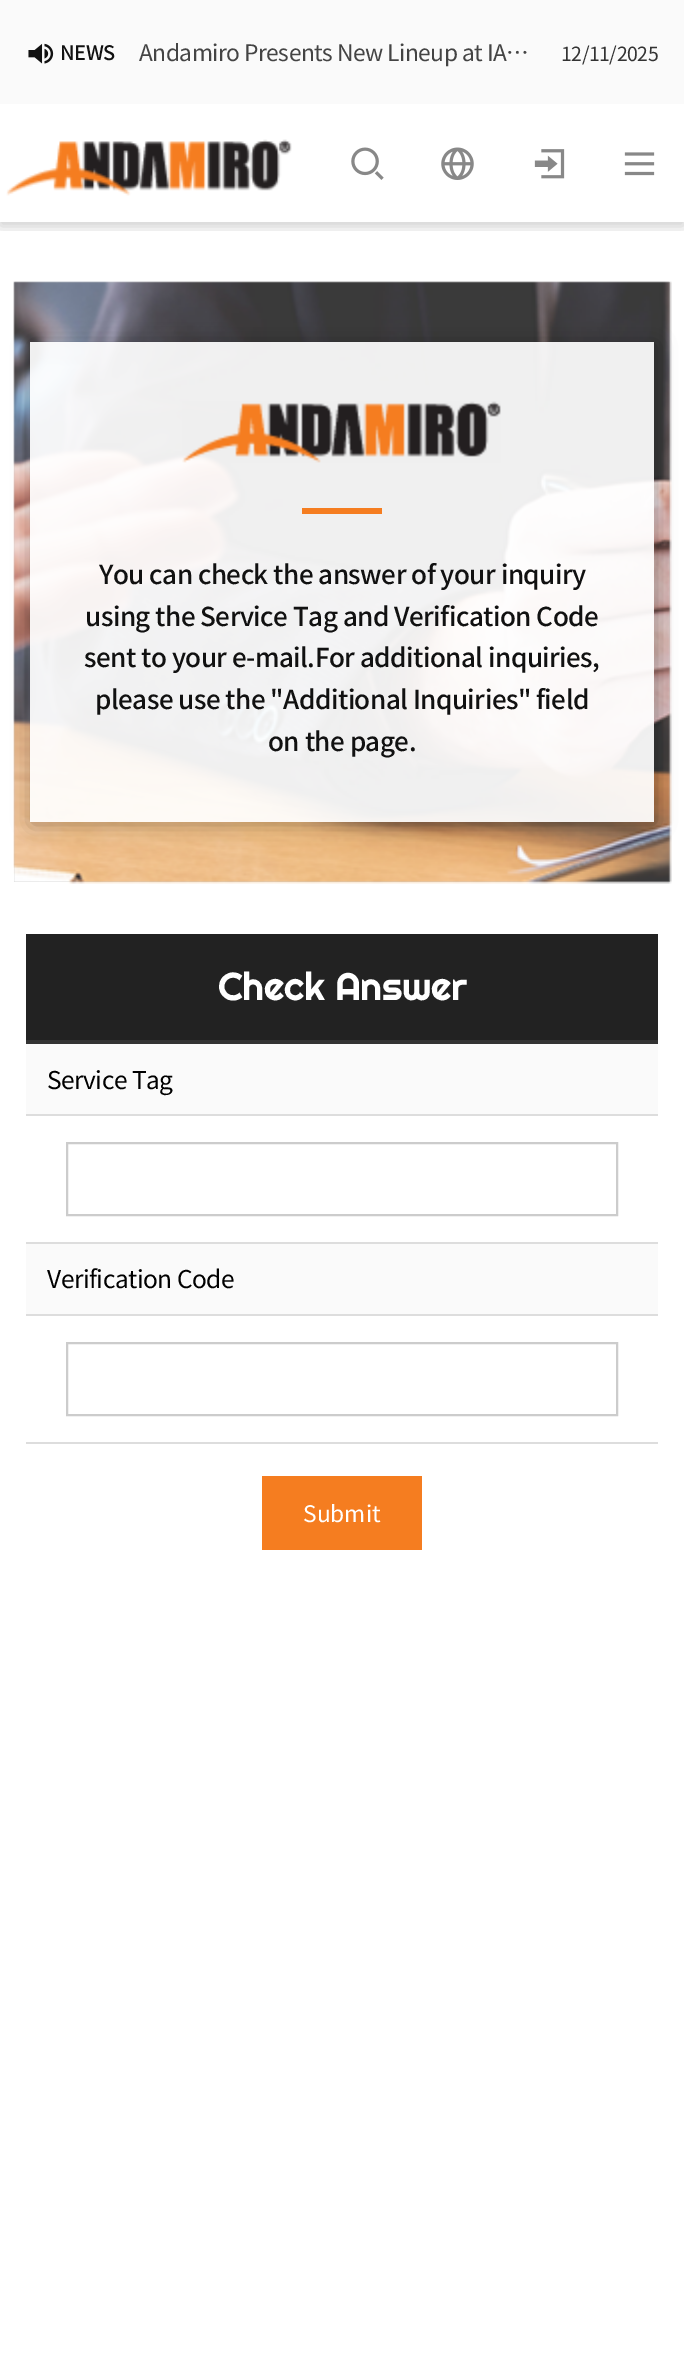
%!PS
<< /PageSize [684 2360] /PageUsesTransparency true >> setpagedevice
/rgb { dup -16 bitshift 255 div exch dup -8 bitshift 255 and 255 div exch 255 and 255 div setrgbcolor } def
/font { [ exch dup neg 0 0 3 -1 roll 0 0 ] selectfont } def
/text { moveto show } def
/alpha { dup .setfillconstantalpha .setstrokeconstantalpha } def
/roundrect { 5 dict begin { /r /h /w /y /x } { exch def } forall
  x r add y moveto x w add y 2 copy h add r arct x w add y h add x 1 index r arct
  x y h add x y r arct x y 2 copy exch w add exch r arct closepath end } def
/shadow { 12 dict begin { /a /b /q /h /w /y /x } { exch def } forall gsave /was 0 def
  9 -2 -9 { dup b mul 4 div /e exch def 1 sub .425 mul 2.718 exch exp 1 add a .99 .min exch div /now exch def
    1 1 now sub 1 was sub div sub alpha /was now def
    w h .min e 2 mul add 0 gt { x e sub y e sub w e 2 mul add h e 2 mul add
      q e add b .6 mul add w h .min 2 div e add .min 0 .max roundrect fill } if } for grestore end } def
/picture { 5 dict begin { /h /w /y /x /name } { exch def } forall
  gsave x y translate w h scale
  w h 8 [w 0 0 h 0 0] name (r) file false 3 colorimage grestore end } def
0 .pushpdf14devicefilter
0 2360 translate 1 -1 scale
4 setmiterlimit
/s1 { /NotoSansKR-Regular 22.75 font 16#FFFFFF rgb } def
16#FFFFFF rgb
0 0 684 2360 rectfill
gsave
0 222 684 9 rectclip
16#000000 rgb
0 4 684 222 0 6.5 0.1 shadow
0 4 684 222 0 6.5 0.1 shadow
grestore
16#FAFAFA rgb
0 0 684 104 rectfill
(pic1.raw) 28 43 26 21 picture
/NotoSansKR-Medium 20 font
16#111111 rgb
60 60 moveto -0.5 0 (NEWS) ashow
/NotoSansKR-Regular 22.75 font
16#444444 rgb
139 61 moveto -0.5 0 (Andamiro Presents New Lineup at IA…) ashow
/NotoSansKR-Regular 19.5 font
16#333333 rgb
561 61 moveto -0.5 0 (12/11/2025) ashow
(pic2.raw) 6 139 286 57 picture
(pic3.raw) 351 147 33 33 picture
(pic4.raw) 441 147 33 33 picture
(pic5.raw) 534 149 31 30 picture
(pic6.raw) 624 152 31 24 picture
16#CCCCCC rgb
14 282 656 600 rectfill
(pic7.raw) 13 281 659 603 picture
gsave
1 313 moveto 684 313 lineto 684 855 lineto 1 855 lineto closepath 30 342 moveto 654 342 lineto 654 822 lineto 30 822 lineto closepath eoclip newpath
16#000000 rgb
32 344 624 480 0 10 0.3 shadow
grestore
0.92 alpha
16#FFFFFF rgb
30 342 624 480 rectfill
1 alpha
(pic8.raw) 182 401 319 62 picture
16#F57D20 rgb
302 508 80 6 rectfill
/NotoSansKR-Medium 26 font
16#111111 rgb
99 584 moveto -0.5 0 (You can check the answer of your inquiry) ashow
85 626 moveto -0.5 0 (using the Service Tag and Verification Code) ashow
84 667 moveto -0.5 0 (sent to your e-mail.For additional inquiries,) ashow
95 709 moveto -0.5 0 (please use the "Additional Inquiries" field) ashow
268 751 moveto -0.5 0 (on the page.) ashow
16#222222 rgb
26 934 632 106 rectfill
/Righteous-Regular 39 font
16#FFFFFF rgb
218 1000 moveto -0.5 0 (Check Answer) ashow
16#333333 rgb
26 1040 632 4 rectfill
16#FAFAFA rgb
26 1044 632 70 rectfill
16#DDDDDD rgb
26 1114 632 2 rectfill
/NotoSansKR-Regular 24.5 font
16#000000 rgb
47 1089 moveto -0.5 0 (Service Tag) ashow
16#DDDDDD rgb
26 1242 632 2 rectfill
16#CCCCCC rgb
2 setlinewidth
67 1143 550 72 rectstroke
16#FAFAFA rgb
26 1244 632 70 rectfill
16#DDDDDD rgb
26 1314 632 2 rectfill
16#000000 rgb
47 1288 moveto -0.5 0 (Verification Code) ashow
16#DDDDDD rgb
26 1442 632 2 rectfill
16#CCCCCC rgb
67 1343 550 72 rectstroke
16#F57D20 rgb
262 1476 160 74 rectfill
s1
(Submit) 303 1522 text
.poppdf14devicefilter showpage
